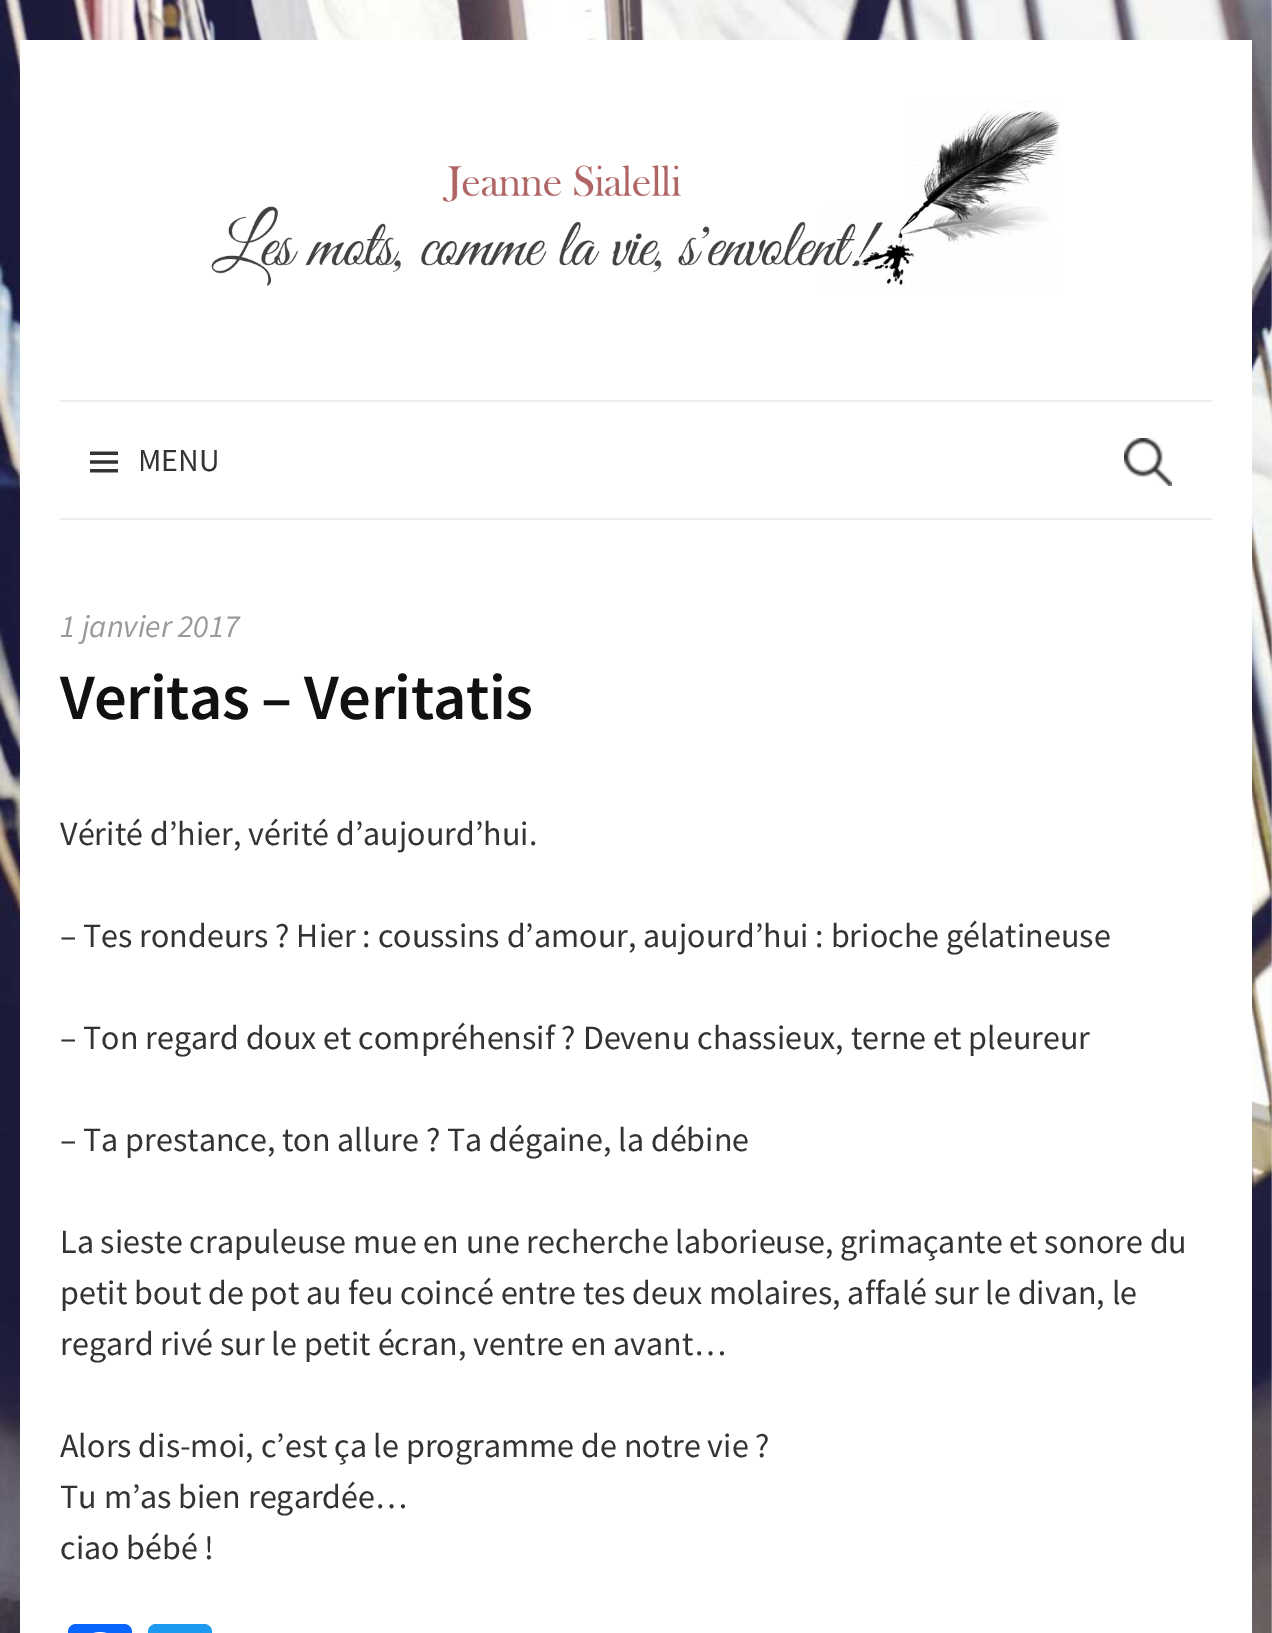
%!PS
<< /PageSize [1272 1633] >> setpagedevice
/rgb { dup -16 bitshift 255 div exch dup -8 bitshift 255 and 255 div exch 255 and 255 div setrgbcolor } def
/font { [ exch dup neg 0 0 3 -1 roll 0 0 ] selectfont } def
/text { moveto show } def
/roundrect { 5 dict begin { /r /h /w /y /x } { exch def } forall
  x r add y moveto x w add y 2 copy h add r arct x w add y h add x 1 index r arct
  x y h add x y r arct x y 2 copy exch w add exch r arct closepath end } def
/picture { 5 dict begin { /h /w /y /x /name } { exch def } forall
  gsave x y translate w h scale
  w h 8 [w 0 0 h 0 0] name (r) file false 3 colorimage grestore end } def
0 1633 translate 1 -1 scale
4 setmiterlimit
/s1 { /SourceSansPro-Regular 32 font 16#333333 rgb } def
/s2 { /SourceSansPro-Italic 32 font 16#999999 rgb } def
/s3 { /SourceSansPro-Regular 34 font 16#333333 rgb } def
16#FFFFFF rgb
0 0 1272 1633 rectfill
(pic1.raw) 0 0 1272 1633 picture
20 40 1232 1593 rectfill
16#EEEEEE rgb
60 400 1152 2 rectfill
(pic2.raw) 211 100 852 189 picture
60 518 1152 2 rectfill
(pic3.raw) 90 451 28 22 picture
s1
(MENU) 138 471 text
(pic4.raw) 1124 438 48 48 picture
s2
(1 janvier 2017) 60 637 text
/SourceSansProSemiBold-SemiBold 64.75 font
16#111111 rgb
60 719 moveto -0.6 0 (Veritas – Veritatis) ashow
s3
(Vérité d’hier, vérité d’aujourd’hui.) 60 845 text
(– Tes rondeurs ? Hier : coussins d’amour, aujourd’hui : brioche gélatineuse) 60 947 text
(– Ton regard doux et compréhensif ? Devenu chassieux, terne et pleureur) 60 1049 text
(– Ta prestance, ton allure ? Ta dégaine, la débine) 60 1151 text
(La sieste crapuleuse mue en une recherche laborieuse, grimaçante et sonore du) 60 1253 text
(petit bout de pot au feu coincé entre tes deux molaires, affalé sur le divan, le) 60 1304 text
(regard rivé sur le petit écran, ventre en avant…) 60 1355 text
(Alors dis-moi, c’est ça le programme de notre vie ?) 60 1457 text
(Tu m’as bien regardée…) 60 1508 text
(ciao bébé !) 60 1559 text
16#0866FF rgb
68 1624 64 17 8 roundrect fill
(pic5.raw) 93 1632 14 1 picture
16#1D9BF0 rgb
148 1624 64 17 8 roundrect fill
showpage
